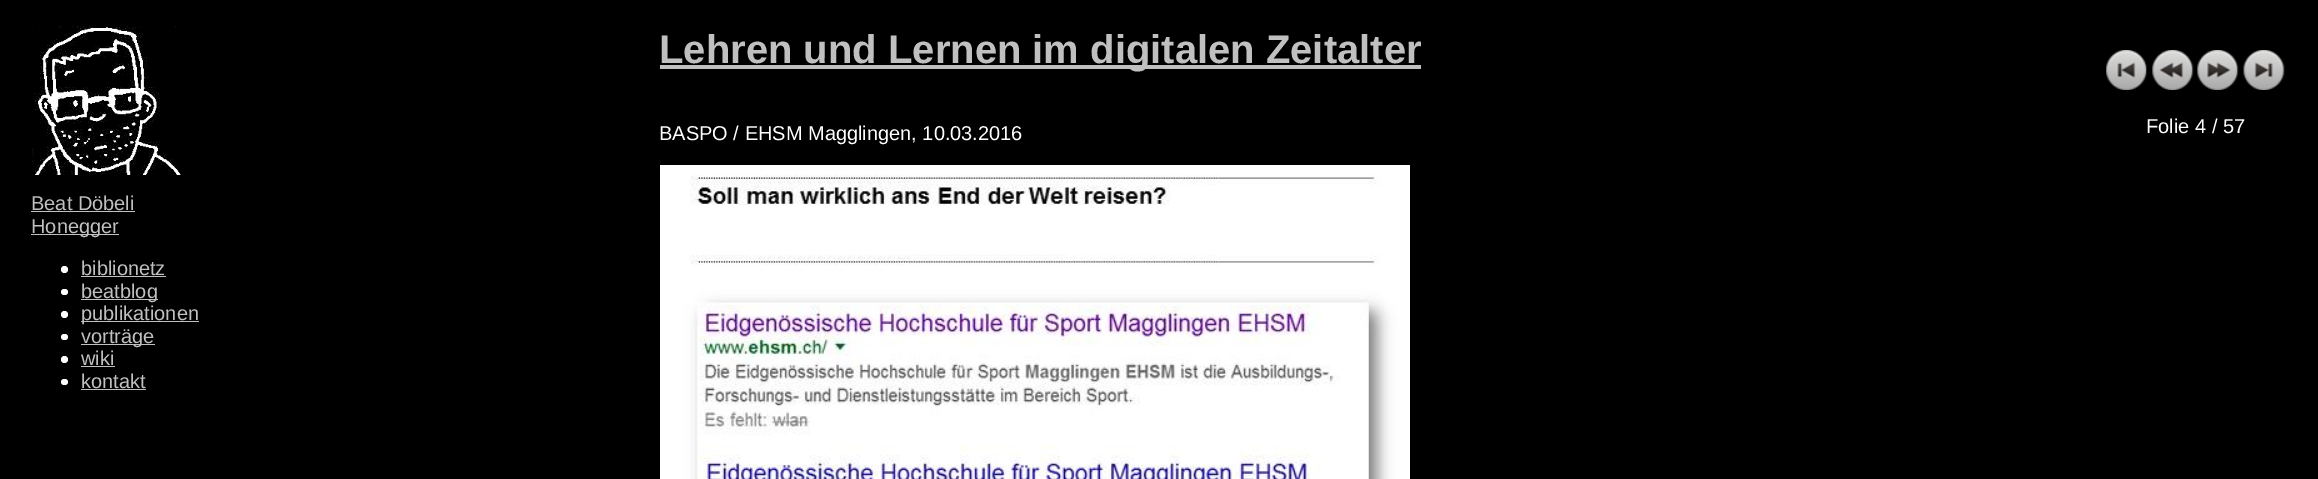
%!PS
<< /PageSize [2318 479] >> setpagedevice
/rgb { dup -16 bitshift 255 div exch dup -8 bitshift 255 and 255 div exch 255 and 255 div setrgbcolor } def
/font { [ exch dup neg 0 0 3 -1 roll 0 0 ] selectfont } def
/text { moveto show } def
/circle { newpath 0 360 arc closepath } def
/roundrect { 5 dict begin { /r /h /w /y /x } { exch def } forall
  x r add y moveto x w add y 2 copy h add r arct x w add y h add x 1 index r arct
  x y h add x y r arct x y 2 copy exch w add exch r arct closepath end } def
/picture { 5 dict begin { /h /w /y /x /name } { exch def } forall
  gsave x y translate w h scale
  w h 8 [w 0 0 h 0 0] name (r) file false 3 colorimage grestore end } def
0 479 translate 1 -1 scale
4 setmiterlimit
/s1 { /LiberationSans-Bold 40 font 16#C0C0C0 rgb } def
/s2 { /LiberationSans-Regular 20 font 16#FFFFFF rgb } def
/s3 { /LiberationSans-Regular 20 font 16#C0C0C0 rgb } def
16#000000 rgb
0 0 2318 479 rectfill
16#C0C0C0 rgb
660 65 761 4 rectfill
s1
(Lehren und Lernen im digitalen Zeitalter) 659 63 text
s2
(BASPO / EHSM Magglingen, 10.03.2016) 659 140 text
(pic1.raw) 2106 50 41 40 picture
(pic2.raw) 2152 50 42 40 picture
(pic3.raw) 2197 50 42 40 picture
(pic4.raw) 2243 50 42 40 picture
(Folie 4 / 57) 2146 133 text
(pic5.raw) 32 26 149 149 picture
s3
(Beat Döbeli) 31 210 text
31 211 104 1 rectfill
31 234 88 1 rectfill
(Honegger) 31 233 text
16#FFFFFF rgb
64.5 269.5 3.5 circle fill
s3
(biblionetz) 81 275 text
81 276 85 1 rectfill
16#FFFFFF rgb
61 289 7 6 3 roundrect fill
16#C0C0C0 rgb
81 299 77 1 rectfill
(beatblog) 81 298 text
16#FFFFFF rgb
64.5 314.5 3.5 circle fill
16#C0C0C0 rgb
81 321 118 1 rectfill
(publikationen) 81 320 text
16#FFFFFF rgb
61 334 7 6 3 roundrect fill
16#C0C0C0 rgb
81 344 74 1 rectfill
(vorträge) 81 343 text
16#FFFFFF rgb
64.5 359.5 3.5 circle fill
s3
(wiki) 81 365 text
81 366 34 1 rectfill
16#FFFFFF rgb
61 379 7 6 3 roundrect fill
s3
(kontakt) 81 388 text
81 389 65 1 rectfill
(pic6.raw) 660 165 750 314 picture
showpage
